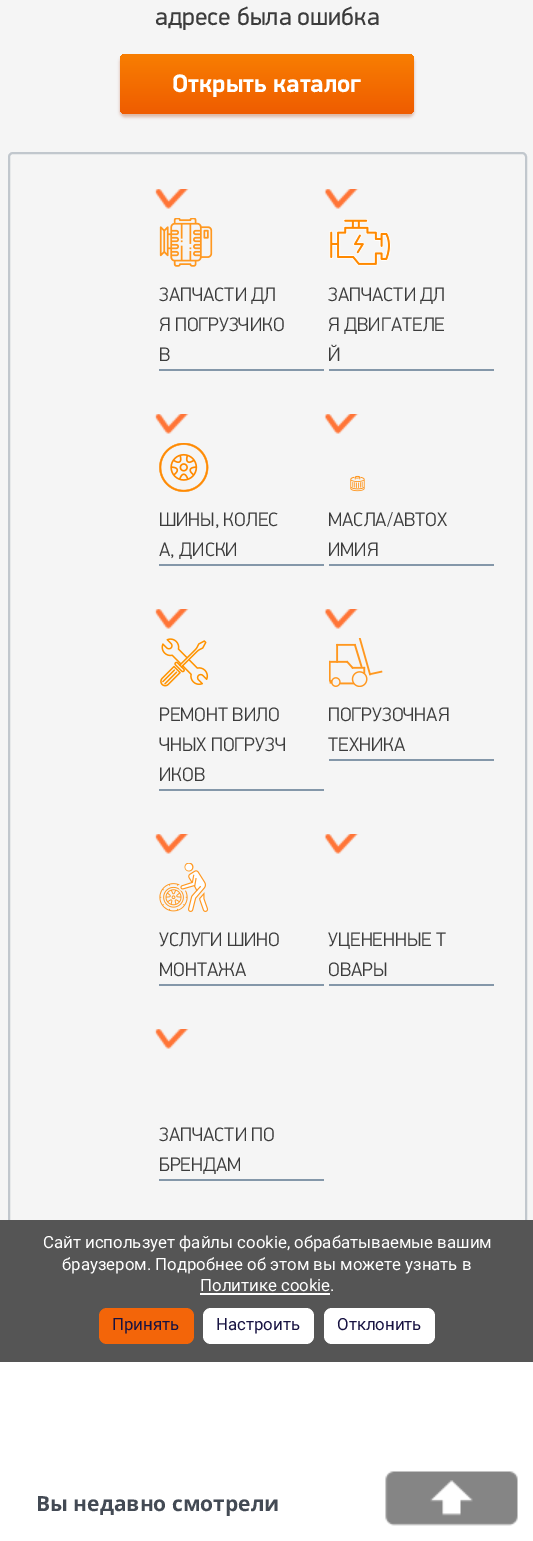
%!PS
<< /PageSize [533 1541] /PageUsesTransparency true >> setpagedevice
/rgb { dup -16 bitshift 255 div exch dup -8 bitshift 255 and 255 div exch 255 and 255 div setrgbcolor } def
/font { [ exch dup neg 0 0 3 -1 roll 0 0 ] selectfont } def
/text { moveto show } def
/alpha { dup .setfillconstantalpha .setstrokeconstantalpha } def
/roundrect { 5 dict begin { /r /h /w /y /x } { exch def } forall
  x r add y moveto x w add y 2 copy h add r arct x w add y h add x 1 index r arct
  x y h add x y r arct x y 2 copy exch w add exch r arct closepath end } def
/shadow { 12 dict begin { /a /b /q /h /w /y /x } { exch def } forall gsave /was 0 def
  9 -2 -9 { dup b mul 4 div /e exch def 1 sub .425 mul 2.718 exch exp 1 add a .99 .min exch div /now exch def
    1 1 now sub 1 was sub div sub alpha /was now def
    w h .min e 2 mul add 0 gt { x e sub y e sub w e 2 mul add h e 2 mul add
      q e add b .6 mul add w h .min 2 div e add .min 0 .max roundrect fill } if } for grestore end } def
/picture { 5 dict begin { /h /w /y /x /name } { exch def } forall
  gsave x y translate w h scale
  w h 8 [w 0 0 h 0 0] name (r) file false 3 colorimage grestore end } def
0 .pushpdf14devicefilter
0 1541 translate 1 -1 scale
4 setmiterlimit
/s1 { /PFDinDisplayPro-Regular 25.5 font 16#3C3C3C rgb } def
/s2 { /PFDinDisplayPro-Bold 25.5 font 16#FFFFFF rgb } def
/s3 { /PFDinDisplayPro-Light 19.5 font 16#3C3C3C rgb } def
/s4 { /Roboto-Regular 16.8 font 16#FFFFFF rgb } def
/s5 { /Roboto-Regular 16.8 font 16#171241 rgb } def
/s6 { /OpenSans-Bold 21 font 16#434A54 rgb } def
16#F5F5F5 rgb
0 0 533 1541 rectfill
s1
(адресе была ошибка) 155 25 text
16#CD957C rgb
120 57 294 60 5 1.5 0.65 shadow
gsave 120 54 294 60 5 roundrect clip newpath
<< /ShadingType 2 /ColorSpace /DeviceRGB /Coords [267 54 267 114] /Extend [true true] /Function << /FunctionType 2 /Domain [0 1] /C0 [0.973 0.494 0.008] /C1 [0.937 0.361 0] /N 1 >> >> shfill grestore
s2
(Открыть каталог) 172 92 text
16#C1C7CD rgb
2 setlinewidth
9 153 517 1111 4 roundrect stroke
16#8497A9 rgb
159 369 165 2 rectfill
(pic1.raw) 154 189 35 20 picture
(pic2.raw) 159 218 54 49 picture
s3
(ЗАПЧАСТИ ДЛ) 159 301 text
(Я ПОГРУЗЧИКО) 159 331 text
(В) 159 361 text
16#8497A9 rgb
329 369 165 2 rectfill
(pic3.raw) 324 189 35 20 picture
(pic4.raw) 329 219 62 47 picture
s3
(ЗАПЧАСТИ ДЛ) 328 301 text
(Я ДВИГАТЕЛЕ) 328 331 text
(Й) 328 361 text
16#8497A9 rgb
159 564 165 2 rectfill
(pic1.raw) 154 414 35 20 picture
(pic5.raw) 159 443 50 49 picture
s3
(ШИНЫ, КОЛЕС) 159 526 text
(А, ДИСКИ) 159 556 text
16#8497A9 rgb
329 564 165 2 rectfill
(pic3.raw) 324 414 35 20 picture
(pic6.raw) 350 475 15 17 picture
s3
(МАСЛА/АВТОХ) 328 526 text
(ИМИЯ) 328 556 text
16#8497A9 rgb
159 789 165 2 rectfill
(pic1.raw) 154 609 35 20 picture
(pic7.raw) 160 638 49 49 picture
s3
(РЕМОНТ ВИЛО) 159 721 text
(ЧНЫХ ПОГРУЗЧ) 159 751 text
(ИКОВ) 159 781 text
16#8497A9 rgb
329 759 165 2 rectfill
(pic3.raw) 324 609 35 20 picture
(pic8.raw) 329 638 54 49 picture
s3
(ПОГРУЗОЧНАЯ) 328 721 text
(ТЕХНИКА) 328 751 text
16#8497A9 rgb
159 984 165 2 rectfill
(pic1.raw) 154 834 35 20 picture
(pic9.raw) 159 863 50 49 picture
s3
(УСЛУГИ ШИНО) 159 946 text
(МОНТАЖА) 159 976 text
16#8497A9 rgb
329 984 165 2 rectfill
(pic3.raw) 324 834 35 20 picture
s3
(УЦЕНЕННЫЕ Т) 328 946 text
(ОВАРЫ) 328 976 text
16#8497A9 rgb
159 1179 165 2 rectfill
(pic1.raw) 154 1029 35 20 picture
s3
(ЗАПЧАСТИ ПО) 159 1141 text
(БРЕНДАМ) 159 1171 text
16#555555 rgb
0 1220 533 142 rectfill
s4
(Сайт использует файлы cookie, обрабатываемые вашим) 43 1248 text
(браузером. Подробнее об этом вы можете узнать в) 62 1270 text
(Политике cookie.) 200 1291 text
200 1293 130 2 rectfill
16#F36509 rgb
99 1308 95 36 8 roundrect fill
s5
(Принять) 112 1330 text
16#FFFFFF rgb
203 1308 111 36 8 roundrect fill
s5
(Настроить) 216 1330 text
16#FFFFFF rgb
324 1308 111 36 8 roundrect fill
s5
(Отклонить) 337 1330 text
16#FFFFFF rgb
0 1362 533 179 rectfill
s6
(Вы недавно смотрели) 36 1511 text
(pic10.raw) 385 1471 133 55 picture
.poppdf14devicefilter showpage
